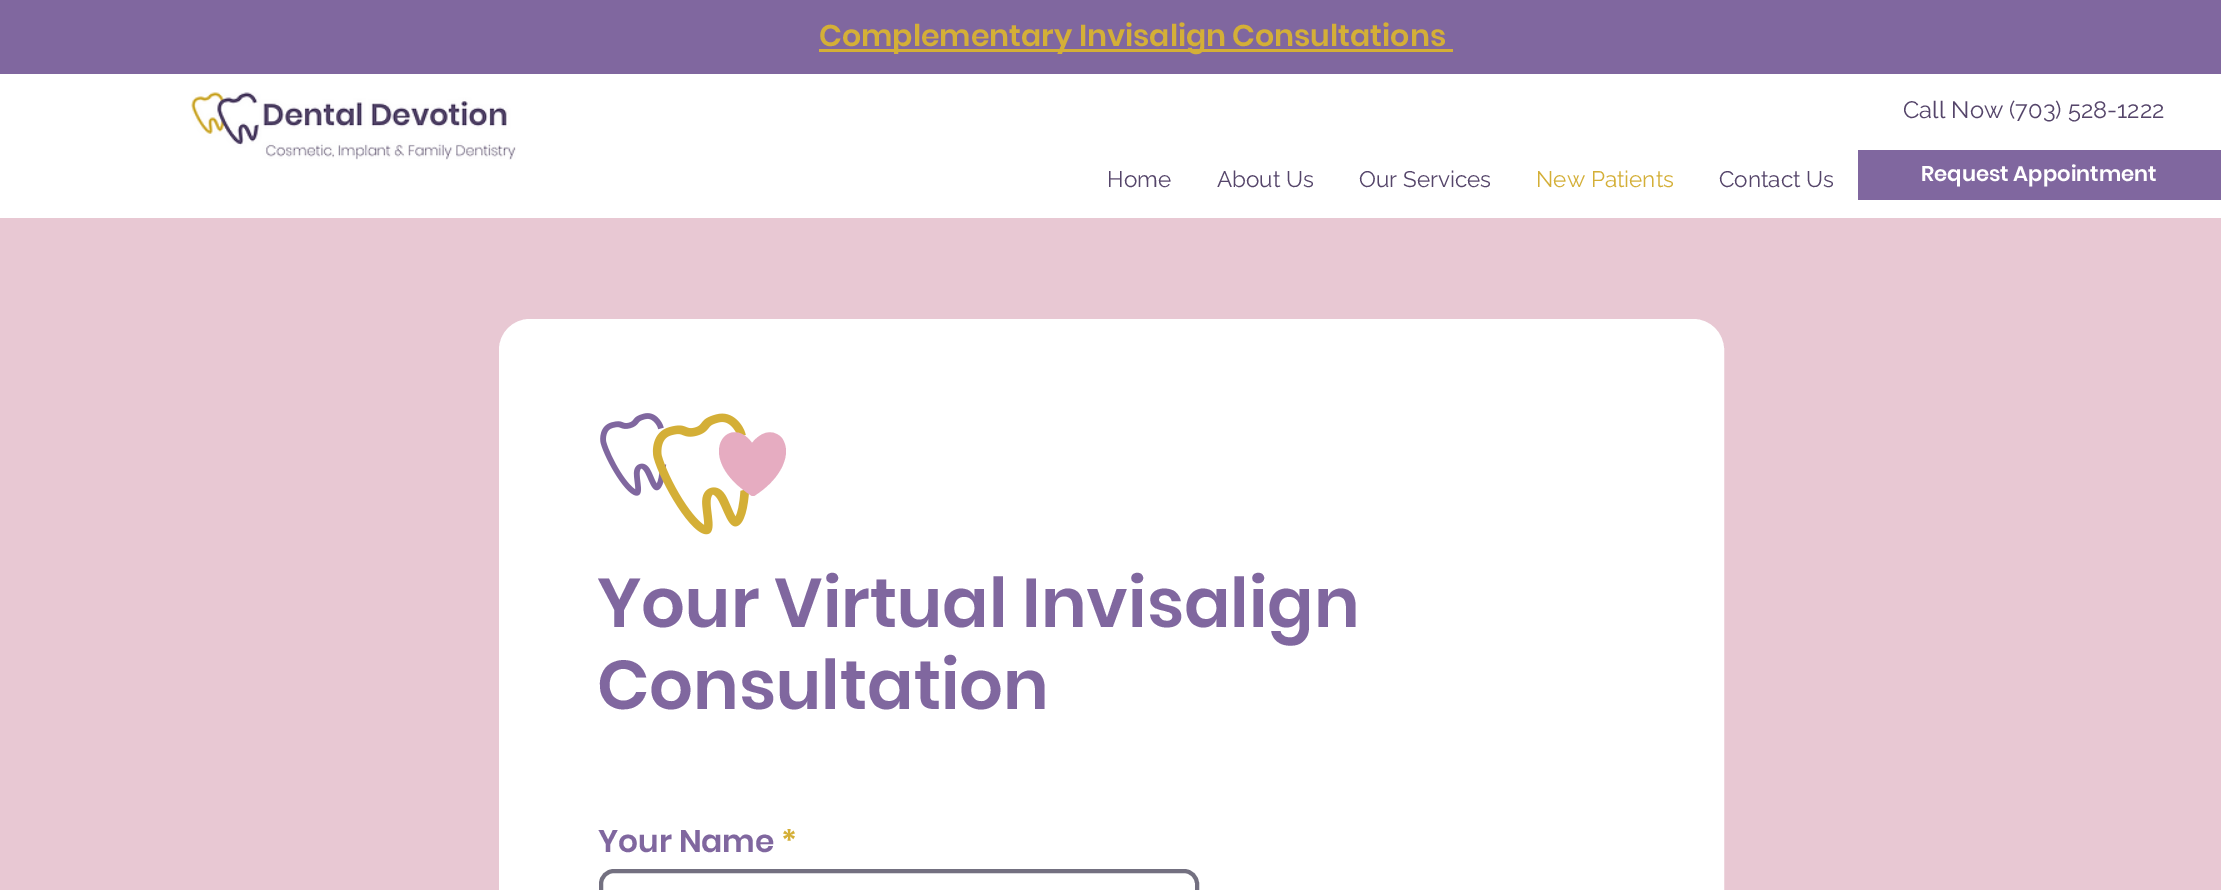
%!PS
<< /PageSize [2221 890] >> setpagedevice
/rgb { dup -16 bitshift 255 div exch dup -8 bitshift 255 and 255 div exch 255 and 255 div setrgbcolor } def
/font { [ exch dup neg 0 0 3 -1 roll 0 0 ] selectfont } def
/text { moveto show } def
/roundrect { 5 dict begin { /r /h /w /y /x } { exch def } forall
  x r add y moveto x w add y 2 copy h add r arct x w add y h add x 1 index r arct
  x y h add x y r arct x y 2 copy exch w add exch r arct closepath end } def
/picture { 5 dict begin { /h /w /y /x /name } { exch def } forall
  gsave x y translate w h scale
  w h 8 [w 0 0 h 0 0] name (r) file false 3 colorimage grestore end } def
0 890 translate 1 -1 scale
4 setmiterlimit
/s1 { /Poppins-SemiBold 30 font 16#D4AF37 rgb } def
/s2 { /Raleway-Regular 23.75 font 16#55456A rgb } def
/s3 { /Raleway-Regular 22.5 font 16#55456A rgb } def
/s4 { /Raleway-Regular 22.5 font 16#D4AF37 rgb } def
/s5 { /Poppins-SemiBold 21.25 font 16#FFFFFF rgb } def
/s6 { /Poppins-SemiBold 68.75 font 16#80679F rgb } def
/s7 { /Poppins-SemiBold 31.25 font 16#80679F rgb } def
/s8 { /Poppins-SemiBold 31.25 font 16#D4AF37 rgb } def
16#FFFFFF rgb
0 0 2221 890 rectfill
16#80679F rgb
0 0 2221 74 rectfill
16#D4AF37 rgb
819 49 634 3 rectfill
s1
(Complementary Invisalign Consultations) 819 46 text
(pic1.raw) 191 92 325 68 picture
s2
(Call Now \(703\) 528-1222) 1903 118 text
s3
(Home) 1107 187 text
(About Us) 1217 187 text
(Our Services) 1359 187 text
s4
(New Patients) 1536 187 text
s3
(Contact Us) 1719 187 text
16#80679F rgb
1858 150 363 50 rectfill
s5
(Request Appointment) 1921 181 text
16#E8C8D3 rgb
0 218 2221 672 rectfill
16#FFFFFF rgb
508.5 328.5 1206 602 21.5 roundrect gsave fill grestore
19 setlinewidth
stroke
(pic2.raw) 600 413 67 83 picture
(pic3.raw) 652 413 97 122 picture
16#E6ACC1 rgb
781 437 moveto 771 428 760 433 752 443 curveto 729 411 691 457 752 496 curveto 754 496 lineto 779 480 786 462 786 451 curveto 786 445 783 439 781 437 curveto closepath fill
s6
(Your Virtual Invisalign) 597 627 text
(Consultation) 597 709 text
s7
(Your Name) 598 852 text
s8
(*) 781 852 text
16#737080 rgb
4 setlinewidth
601 871 596 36 13 roundrect stroke
showpage
